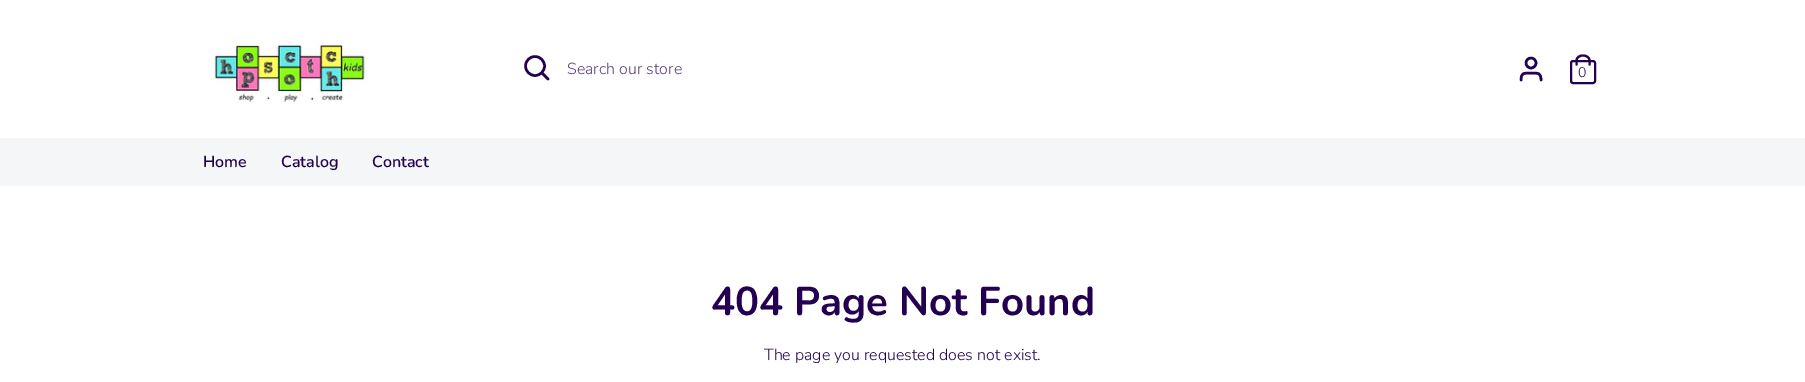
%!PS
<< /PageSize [1805 382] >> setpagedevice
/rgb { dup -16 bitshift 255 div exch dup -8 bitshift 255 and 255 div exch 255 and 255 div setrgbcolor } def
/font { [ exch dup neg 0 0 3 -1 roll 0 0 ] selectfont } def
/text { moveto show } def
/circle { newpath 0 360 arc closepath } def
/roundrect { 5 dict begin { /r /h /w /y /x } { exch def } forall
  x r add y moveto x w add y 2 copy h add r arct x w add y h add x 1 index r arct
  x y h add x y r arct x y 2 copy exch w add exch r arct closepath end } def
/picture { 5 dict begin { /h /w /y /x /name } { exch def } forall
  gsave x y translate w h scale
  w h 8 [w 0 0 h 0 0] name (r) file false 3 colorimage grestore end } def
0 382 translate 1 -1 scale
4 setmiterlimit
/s1 { /Nunito-Light 16 font 16#5A407D rgb } def
/s2 { /Nunito-Light 14 font 16#230051 rgb } def
/s3 { /Nunito-SemiBold 16 font 16#230051 rgb } def
/s4 { /Nunito-Bold 40.1 font 16#230051 rgb } def
/s5 { /Nunito-Light 16 font 16#230051 rgb } def
16#FFFFFF rgb
0 0 1805 382 rectfill
(pic1.raw) 214 40 153 63 picture
16#230051 rgb
2.5 setlinewidth
535 66 9.5 circle stroke
1 setlinecap
548 79 moveto 542 73 lineto stroke
s1
(Search our store) 567 74 text
16#230051 rgb
1541 80 moveto 1541 72.5 1538 73 1531 73 curveto 1524 73 1521 72.5 1521 80 curveto stroke
0 setlinecap
1531 63 5 circle stroke
2 setlinewidth
1571 61 24 22 2 roundrect stroke
2.1 setlinewidth
1 setlinecap
1576.5 64.5 moveto 1576.5 60.5 lineto 1576.5 57.5 1579.5 55.5 1583 55.5 curveto 1586.5 55.5 1589.5 57.5 1589.5 60.5 curveto 1589.5 64.5 lineto stroke
s2
(0) 1578 77 text
16#F4F6F8 rgb
0 138 1805 48 rectfill
s3
(Home) 203 167 text
(Catalog) 281 167 text
(Contact) 372 167 text
s4
(404 Page Not Found) 711 315 text
s5
(The page you requested does not exist.) 764 360 text
showpage
